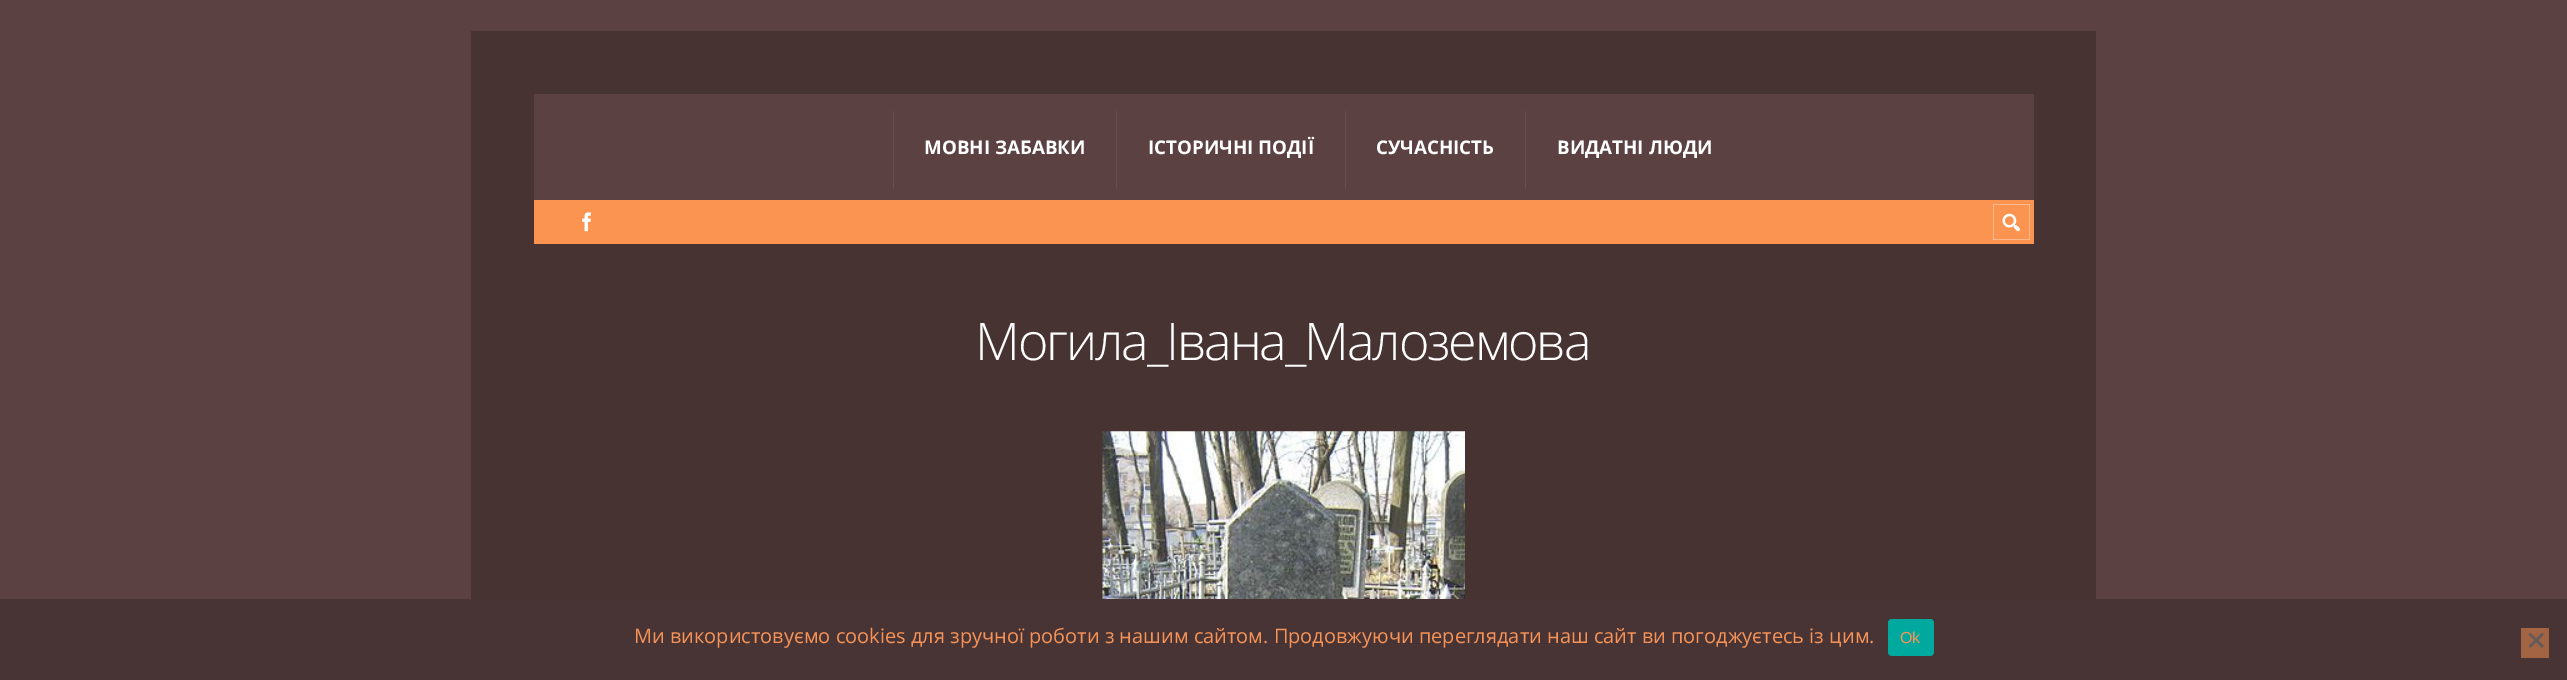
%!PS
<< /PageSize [2567 680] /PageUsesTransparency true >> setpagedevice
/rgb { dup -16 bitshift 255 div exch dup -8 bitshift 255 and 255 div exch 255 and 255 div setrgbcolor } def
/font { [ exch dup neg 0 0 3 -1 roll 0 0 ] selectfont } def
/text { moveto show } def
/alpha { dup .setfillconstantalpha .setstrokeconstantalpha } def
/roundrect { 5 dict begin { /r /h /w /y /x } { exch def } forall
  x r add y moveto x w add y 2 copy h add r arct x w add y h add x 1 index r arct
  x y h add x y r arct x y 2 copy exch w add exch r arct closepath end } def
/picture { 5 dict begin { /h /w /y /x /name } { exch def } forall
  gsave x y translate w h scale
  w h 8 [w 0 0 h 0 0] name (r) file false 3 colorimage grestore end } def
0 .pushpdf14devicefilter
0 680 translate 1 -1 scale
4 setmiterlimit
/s1 { /OpenSans-Bold 18.75 font 16#FFFFFF rgb } def
/s2 { /OpenSans-Regular 20 font 16#F89358 rgb } def
/s3 { /LiberationSans-Regular 16 font 16#F89358 rgb } def
16#5B4141 rgb
0 0 2567 680 rectfill
16#483333 rgb
471 31 1625 568 rectfill
16#5B4141 rgb
534 94 1500 106 rectfill
16#664E4E rgb
893 111 1 78 rectfill
s1
(МОВНІ ЗАБАВКИ) 924 154 text
16#664E4E rgb
1116 111 1 78 rectfill
s1
(ІСТОРИЧНІ ПОДІЇ) 1148 154 text
16#664E4E rgb
1345 111 1 78 rectfill
s1
(СУЧАСНІСТЬ) 1376 154 text
16#664E4E rgb
1525 111 1 78 rectfill
s1
(ВИДАТНІ ЛЮДИ) 1557 154 text
16#FB9351 rgb
534 200 1500 44 rectfill
(pic1.raw) 582 212 9 20 picture
gsave
1993 204 37 36 rectclip
16#FCB98E rgb
1869 80 moveto 2154 80 lineto 2154 364 lineto 1869 364 lineto closepath 1991 202 moveto 2029 202 lineto 2029 239 lineto 1991 239 lineto closepath eofill
0.35 alpha
16#FFFFFF rgb
1869 80 moveto 2154 80 lineto 2154 364 lineto 1869 364 lineto closepath 1994 205 moveto 2031 205 lineto 2031 241 lineto 1994 241 lineto closepath eofill
grestore
(pic2.raw) 2002 213 18 19 picture
/OpenSans-Light 52 font
16#FFFFFF rgb
975 360 moveto -2.1 0 (Могила_Івана_Малоземова) ashow
(pic3.raw) 1102 431 363 168 picture
16#483434 rgb
0 599 2567 81 rectfill
s2
(Ми використовуємо cookies для зручної роботи з нашим сайтом. Продовжуючи переглядати наш сайт ви погоджуєтесь із цим.) 634 643 text
16#00A99D rgb
1888 619 46 37 4 roundrect fill
s3
(Ok) 1900 643 text
16#A26443 rgb
2521 628 28 30 rectfill
16#645A5A rgb
2542 633 moveto 2544 634.5 lineto 2530.5 648 lineto 2528.5 646 lineto closepath fill
2528.5 634.5 moveto 2530.5 633 lineto 2544 646 lineto 2542 648 lineto closepath fill
.poppdf14devicefilter showpage
